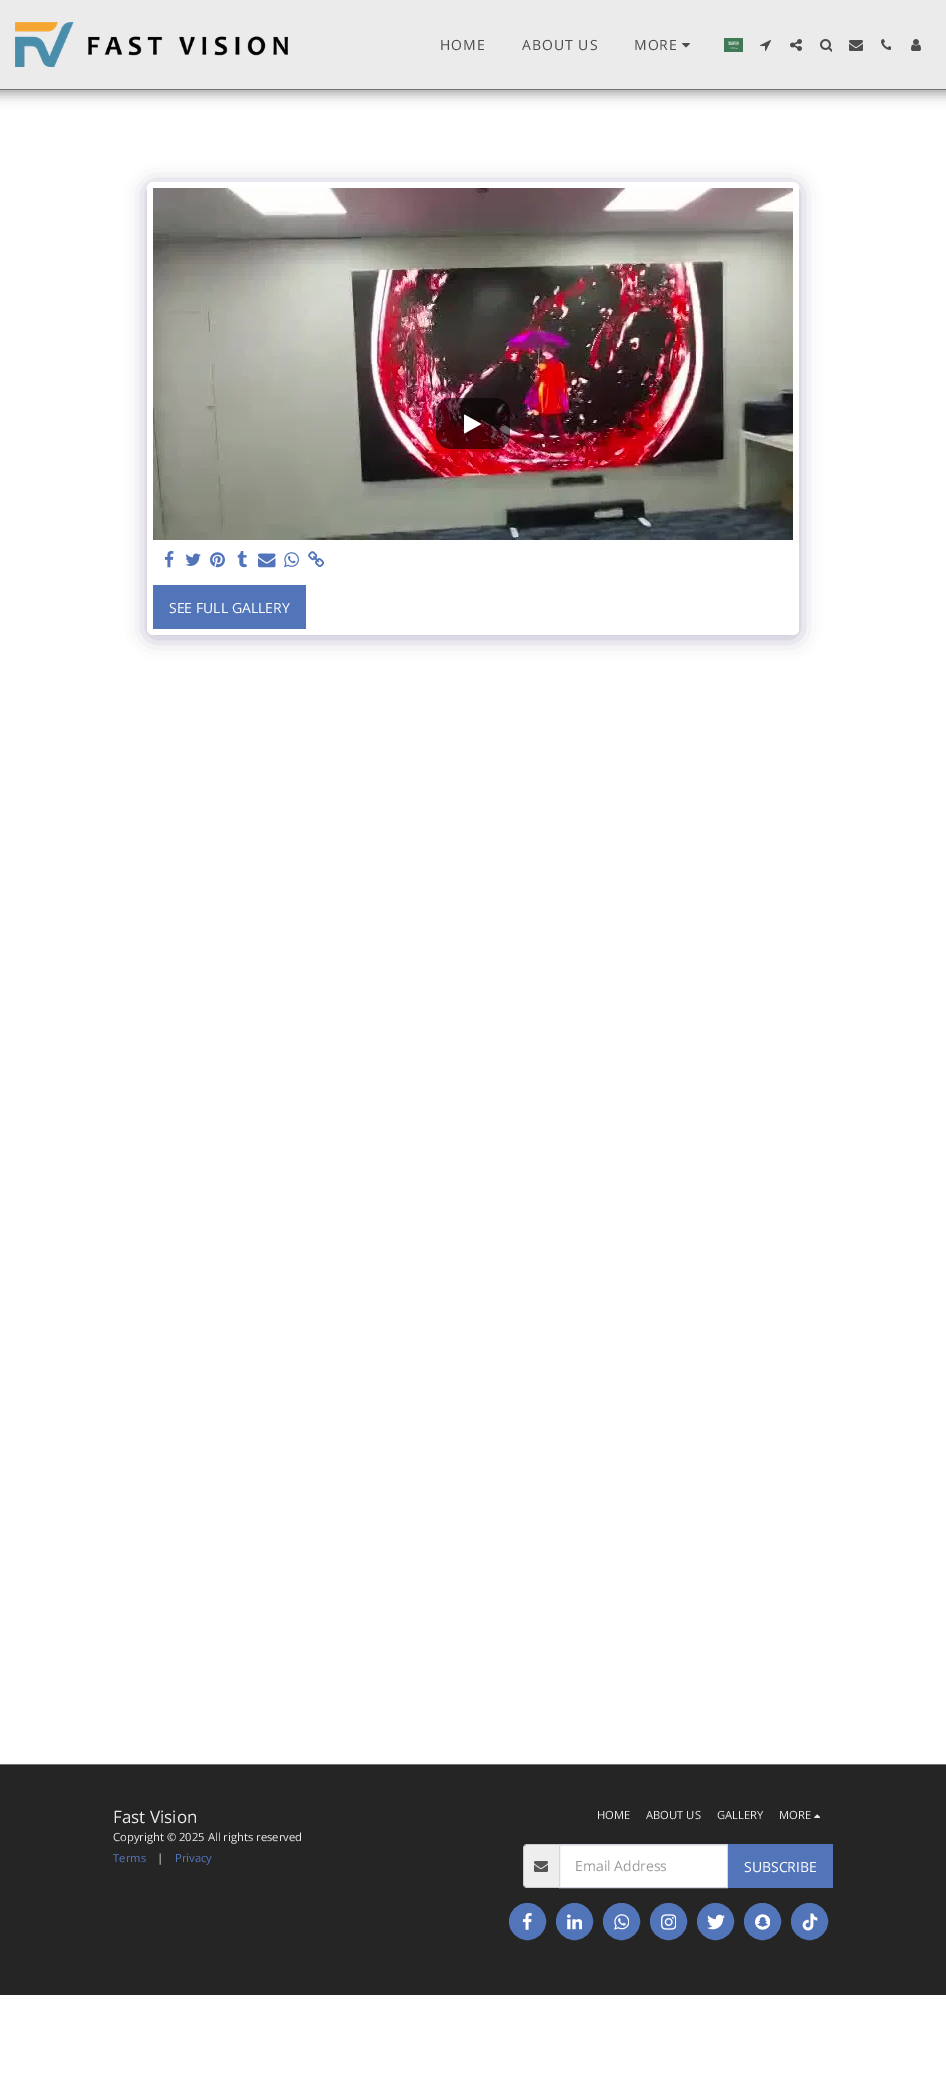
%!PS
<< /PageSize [946 2093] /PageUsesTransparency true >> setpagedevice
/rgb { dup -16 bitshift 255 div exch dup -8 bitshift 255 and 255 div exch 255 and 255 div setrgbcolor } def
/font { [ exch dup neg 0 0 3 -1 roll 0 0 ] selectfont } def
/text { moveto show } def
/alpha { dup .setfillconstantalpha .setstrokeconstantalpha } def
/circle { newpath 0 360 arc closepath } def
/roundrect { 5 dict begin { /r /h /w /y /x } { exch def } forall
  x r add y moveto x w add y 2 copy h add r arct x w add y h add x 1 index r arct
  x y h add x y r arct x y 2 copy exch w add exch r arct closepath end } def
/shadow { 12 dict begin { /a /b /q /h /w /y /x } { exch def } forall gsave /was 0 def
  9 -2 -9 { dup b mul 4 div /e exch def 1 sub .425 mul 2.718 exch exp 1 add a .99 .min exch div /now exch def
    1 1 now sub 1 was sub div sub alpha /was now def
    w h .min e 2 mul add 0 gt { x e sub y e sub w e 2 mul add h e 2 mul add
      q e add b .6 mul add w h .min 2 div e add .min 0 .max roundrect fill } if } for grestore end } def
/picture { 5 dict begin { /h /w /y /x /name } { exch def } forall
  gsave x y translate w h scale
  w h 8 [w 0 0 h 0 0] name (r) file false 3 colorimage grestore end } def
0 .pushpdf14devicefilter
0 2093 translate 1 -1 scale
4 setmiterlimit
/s1 { /OpenSans-Regular 14 font 16#FFFFFF rgb } def
/s2 { /OpenSans-Regular 17 font 16#EBEBEB rgb } def
/s3 { /OpenSans-Regular 11.25 font 16#EBEBEB rgb } def
/s4 { /OpenSans-Regular 11.25 font 16#5275BA rgb } def
/s5 { /OpenSans-Regular 14 font 16#999999 rgb } def
16#FFFFFF rgb
0 0 946 2093 rectfill
16#000000 rgb
-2 0 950 94 0 6 0.35 shadow
16#EBEBEB rgb
0 0 946 89 rectfill
16#707070 rgb
0 89 946 1 rectfill
(pic1.raw) 15 22 273 45 picture
/OpenSans-Regular 14 font
16#4D4D4D rgb
440 50 moveto 1 0 (HOME) ashow
522 50 moveto 1 0 (ABOUT US) ashow
634 50 moveto 1 0 (MORE) ashow
(pic2.raw) 682 43 8 5 picture
(pic3.raw) 724 38 19 14 picture
(pic4.raw) 760 40 11 11 picture
(pic5.raw) 790 39 12 12 picture
(pic6.raw) 820 39 12 13 picture
(pic7.raw) 849 40 14 11 picture
(pic8.raw) 881 39 10 11 picture
(pic9.raw) 911 39 10 12 picture
16#4D3F7A rgb
147 185 652 453 6 10 0.4 shadow
16#FFFFFF rgb
147 182 652 453 6 roundrect fill
(pic10.raw) 153 188 640 352 picture
0.57 alpha
16#000000 rgb
436 398 74 51 15 roundrect fill
1 alpha
(pic11.raw) 464 414 18 20 picture
(pic12.raw) 164 551 10 17 picture
(pic13.raw) 185 553 16 13 picture
(pic14.raw) 210 552 15 16 picture
(pic15.raw) 237 551 10 17 picture
(pic16.raw) 258 553 18 15 picture
(pic17.raw) 284 552 15 16 picture
(pic18.raw) 308 551 16 17 picture
16#5275BA rgb
153 585 153 44 rectfill
s1
(SEE FULL GALLERY) 169 613 text
16#252525 rgb
0 1765 946 230 rectfill
16#707070 rgb
0 1764 946 1 rectfill
s2
(Fast Vision) 113 1823 text
s3
(Copyright © 2025 All rights reserved) 113 1841 text
s4
(Terms) 113 1862 text
s3
(|) 157 1862 text
s4
(Privacy) 175 1862 text
s3
(HOME) 597 1819 text
(ABOUT US) 646 1819 text
(GALLERY) 717 1819 text
(MORE) 779 1819 text
(pic19.raw) 814 1814 6 4 picture
16#EEEEEE rgb
527 1845 moveto 559 1845 lineto 559 1887 lineto 527 1887 lineto 525.5 1887 524 1885.5 524 1884 curveto 524 1848 lineto 524 1846.5 525.5 1845 527 1845 curveto closepath fill
16#CCCCCC rgb
527 1844 moveto 559 1844 lineto 559 1888 lineto 527 1888 lineto 525 1888 523 1886 523 1884 curveto 523 1848 lineto 523 1846 525 1844 527 1844 curveto closepath 527 1845 moveto 559 1845 lineto 559 1887 lineto 527 1887 lineto 525 1887 524 1886 524 1884 curveto 524 1848 lineto 524 1846 525 1845 527 1845 curveto closepath eofill
(pic20.raw) 534 1861 14 11 picture
16#FFFFFF rgb
560 1846 167 41 rectfill
16#ECECEC rgb
560 1845 167 1 rectfill
16#D4D7E5 rgb
559.5 1844.5 168 43 rectstroke
s5
(Email Address) 575 1871 text
16#5275BA rgb
728 1844 105 44 rectfill
s1
(SUBSCRIBE) 744 1872 text
16#5275BA rgb
527.5 1921.5 18 circle gsave fill grestore
stroke
(pic21.raw) 522 1913 10 17 picture
574.5 1921.5 18 circle gsave fill grestore
stroke
(pic22.raw) 567 1914 15 16 picture
621.5 1921.5 18 circle gsave fill grestore
stroke
(pic23.raw) 614 1914 15 16 picture
668.5 1921.5 18 circle gsave fill grestore
stroke
(pic24.raw) 661 1914 15 16 picture
715.5 1921.5 18 circle gsave fill grestore
stroke
(pic25.raw) 707 1914 18 16 picture
762.5 1921.5 18 circle gsave fill grestore
stroke
(pic26.raw) 755 1914 15 16 picture
809.5 1921.5 18 circle gsave fill grestore
stroke
(pic27.raw) 802 1913 16 18 picture
.poppdf14devicefilter showpage
